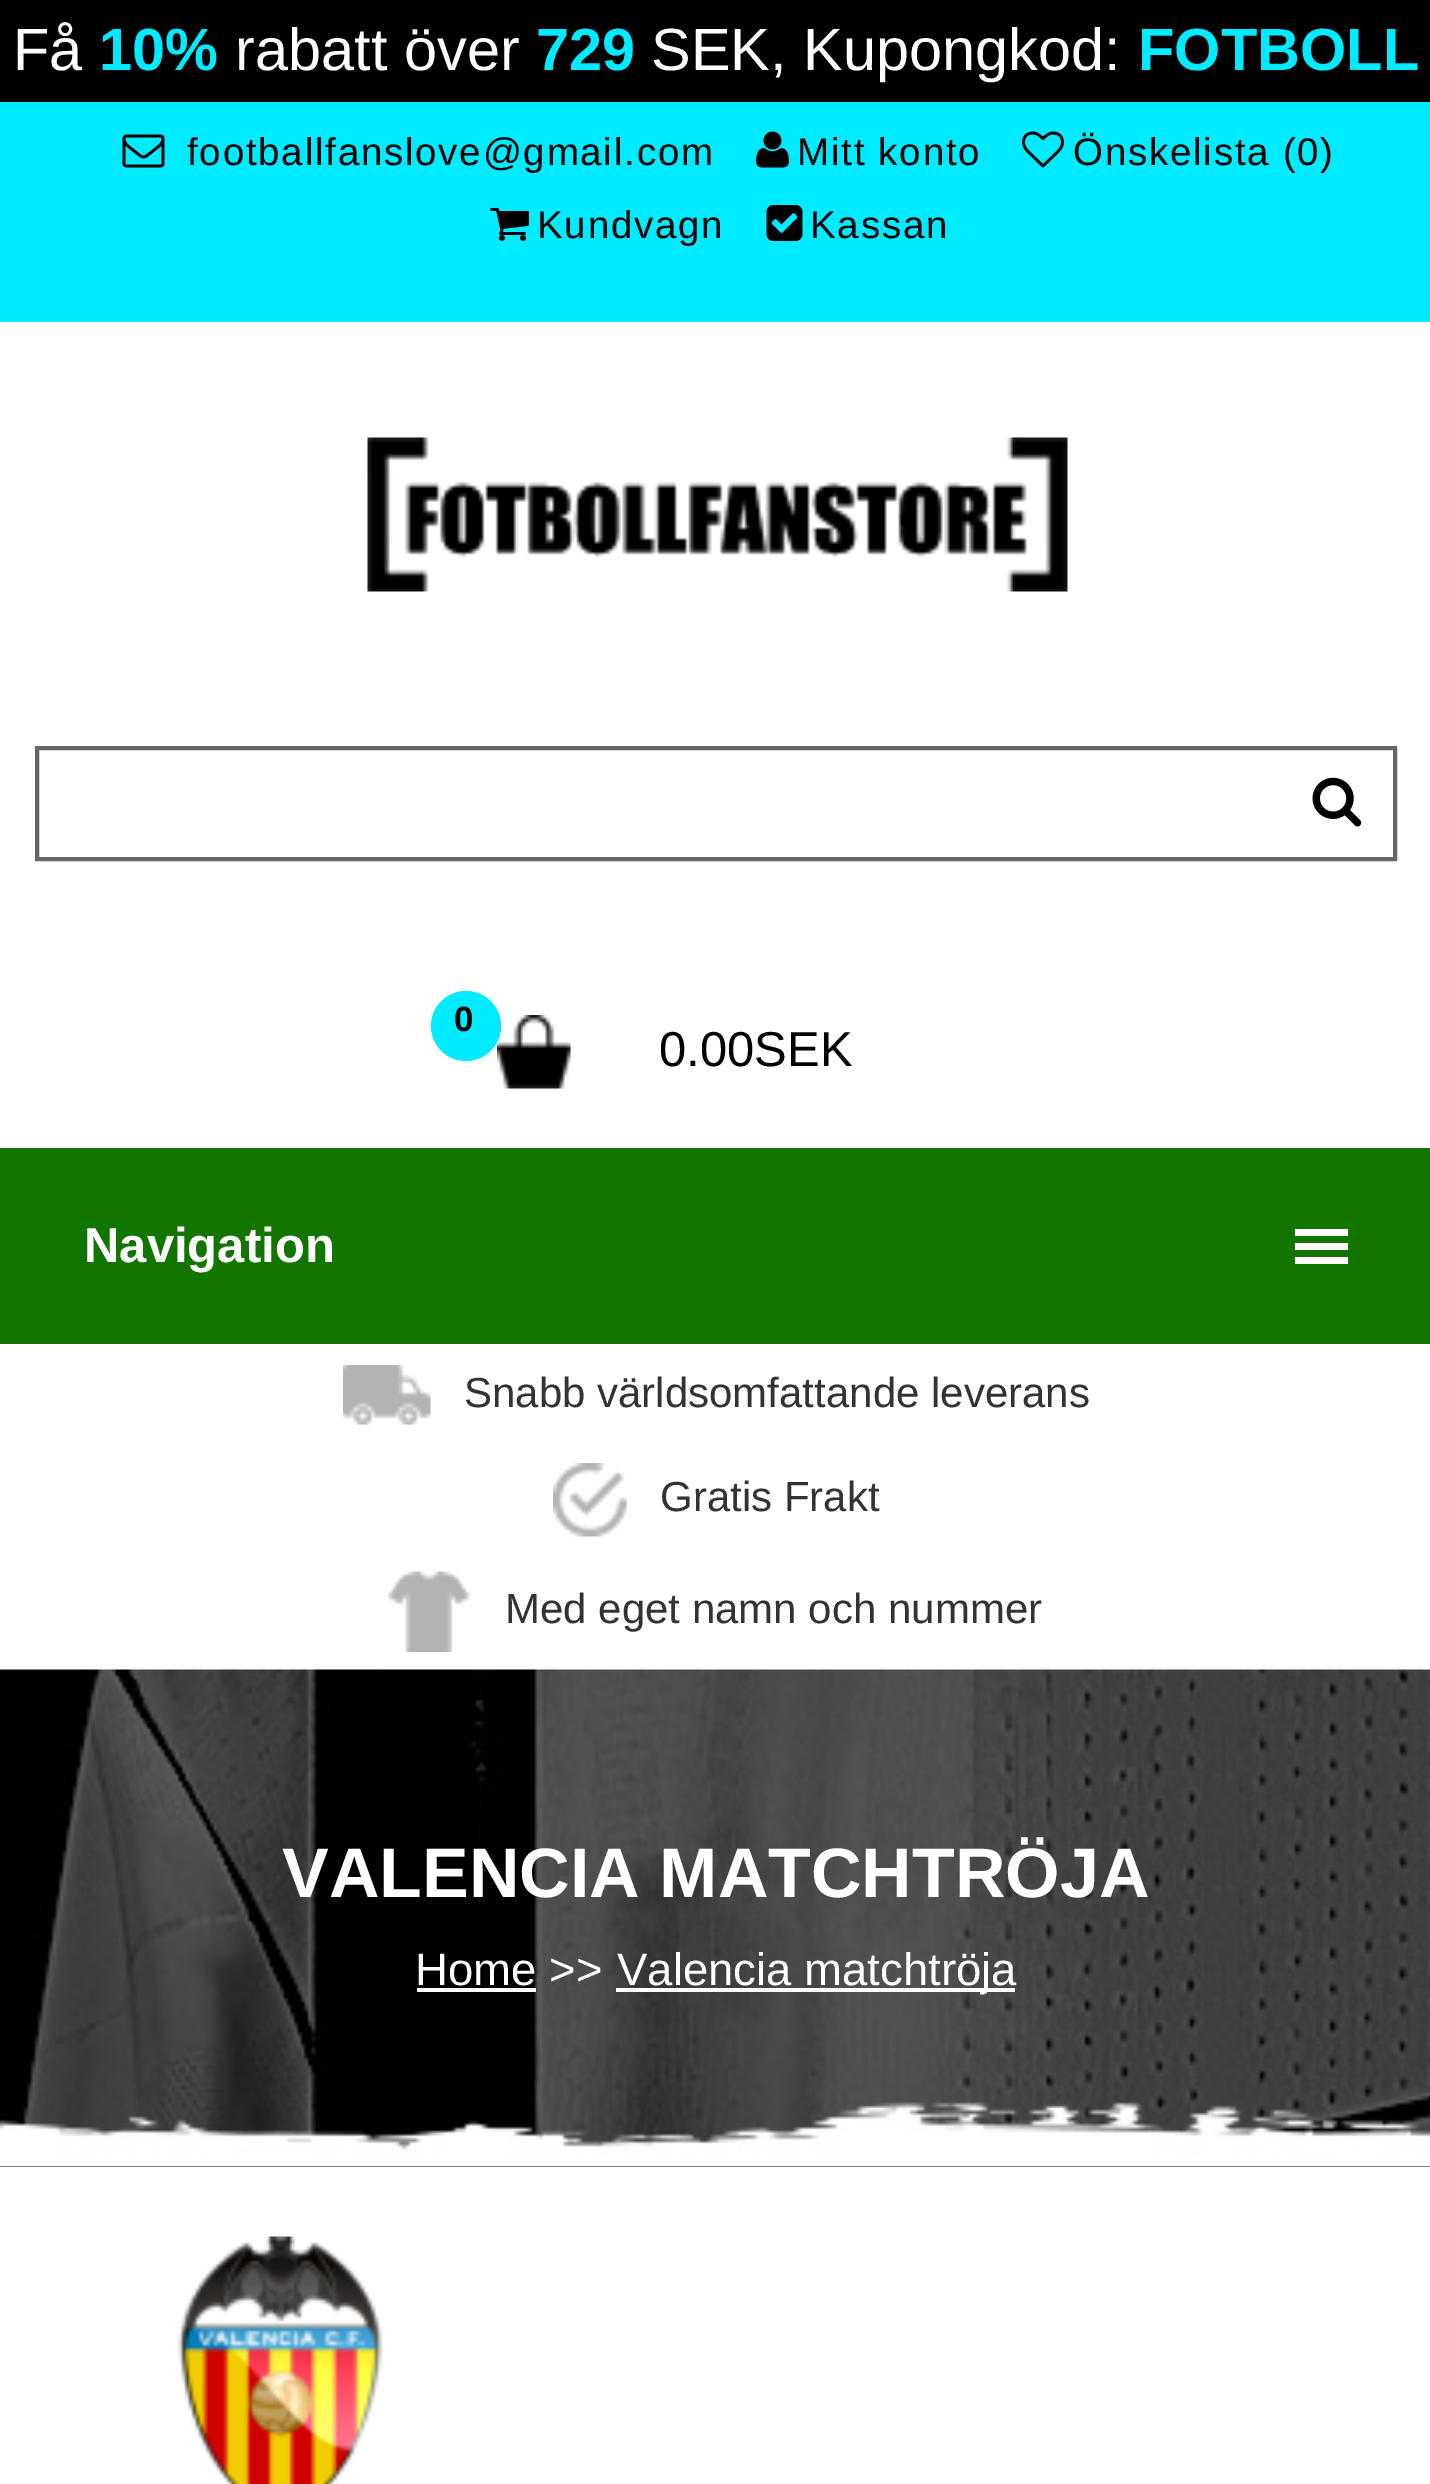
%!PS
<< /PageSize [1430 2484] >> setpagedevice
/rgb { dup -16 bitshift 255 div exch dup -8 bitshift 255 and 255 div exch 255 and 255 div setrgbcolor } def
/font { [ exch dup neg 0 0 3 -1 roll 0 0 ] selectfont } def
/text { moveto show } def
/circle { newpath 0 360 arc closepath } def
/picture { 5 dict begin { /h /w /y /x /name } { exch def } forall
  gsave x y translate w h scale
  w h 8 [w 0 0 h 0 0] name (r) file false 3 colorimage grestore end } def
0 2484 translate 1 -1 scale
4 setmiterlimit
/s1 { /LiberationSans-Regular 59.5 font 16#FFFFFF rgb } def
/s2 { /LiberationSans-Bold 59.5 font 16#00EBFF rgb } def
/s3 { /LiberationSans-Bold 35 font 16#000000 rgb } def
/s4 { /LiberationSans-Regular 49 font 16#000000 rgb } def
/s5 { /LiberationSans-Bold 49 font 16#FFFFFF rgb } def
/s6 { /LiberationSans-Regular 42 font 16#333333 rgb } def
/s7 { /LiberationSans-Bold 70 font 16#FFFFFF rgb } def
/s8 { /LiberationSans-Regular 45.5 font 16#FFFFFF rgb } def
16#FFFFFF rgb
0 0 1430 2484 rectfill
16#000000 rgb
0 0 1430 102 rectfill
s1
(Få) 13 70 text
s2
(10%) 99 70 text
s1
(rabatt över) 235 70 text
s2
(729) 536 70 text
s1
(SEK, Kupongkod:) 651 70 text
s2
(FOTBOLL) 1138 70 text
0 102 1430 220 rectfill
(pic1.raw) 122 134 43 34 picture
/LiberationSans-Regular 38.5 font
16#000000 rgb
187 165 moveto 1.75 0 (footballfanslove@gmail.com) ashow
(pic2.raw) 756 131 33 37 picture
797 165 moveto 1.75 0 (Mitt konto) ashow
(pic3.raw) 1022 131 42 37 picture
1073 165 moveto 1.75 0 (Önskelista \(0\)) ashow
(pic4.raw) 490 208 39 33 picture
537 238 moveto 1.75 0 (Kundvagn) ashow
(pic5.raw) 766 205 37 36 picture
810 238 moveto 1.75 0 (Kassan) ashow
(pic6.raw) 367 437 701 155 picture
16#666666 rgb
4 setlinewidth
37 748 1358 111 rectstroke
(pic7.raw) 1312 777 50 50 picture
(pic8.raw) 497 1015 74 74 picture
16#00EBFF rgb
466 1026 35 circle fill
s3
(0) 454 1031 text
s4
(0.00SEK) 659 1066 text
16#117500 rgb
0 1148 1430 196 rectfill
s5
(Navigation) 84 1262 text
1295 1229 53 7 rectfill
1295 1243 53 7 rectfill
1295 1257 53 7 rectfill
(pic9.raw) 343 1365 88 60 picture
s6
(Snabb världsomfattande leverans) 464 1407 text
(pic10.raw) 553 1463 74 74 picture
(Gratis Frakt) 660 1511 text
(pic11.raw) 388 1571 81 81 picture
(Med eget namn och nummer) 505 1623 text
16#000000 rgb
0 2166 1430 1 rectfill
(pic12.raw) 0 1669 1430 498 picture
s7
(VALENCIA MATCHTRÖJA) 282 1897 text
s8
(Home >>) 415 1985 text
417 1988 119 4 rectfill
616 1988 399 4 rectfill
(Valencia matchtröja) 617 1985 text
(pic13.raw) 177 2236 206 248 picture
showpage
